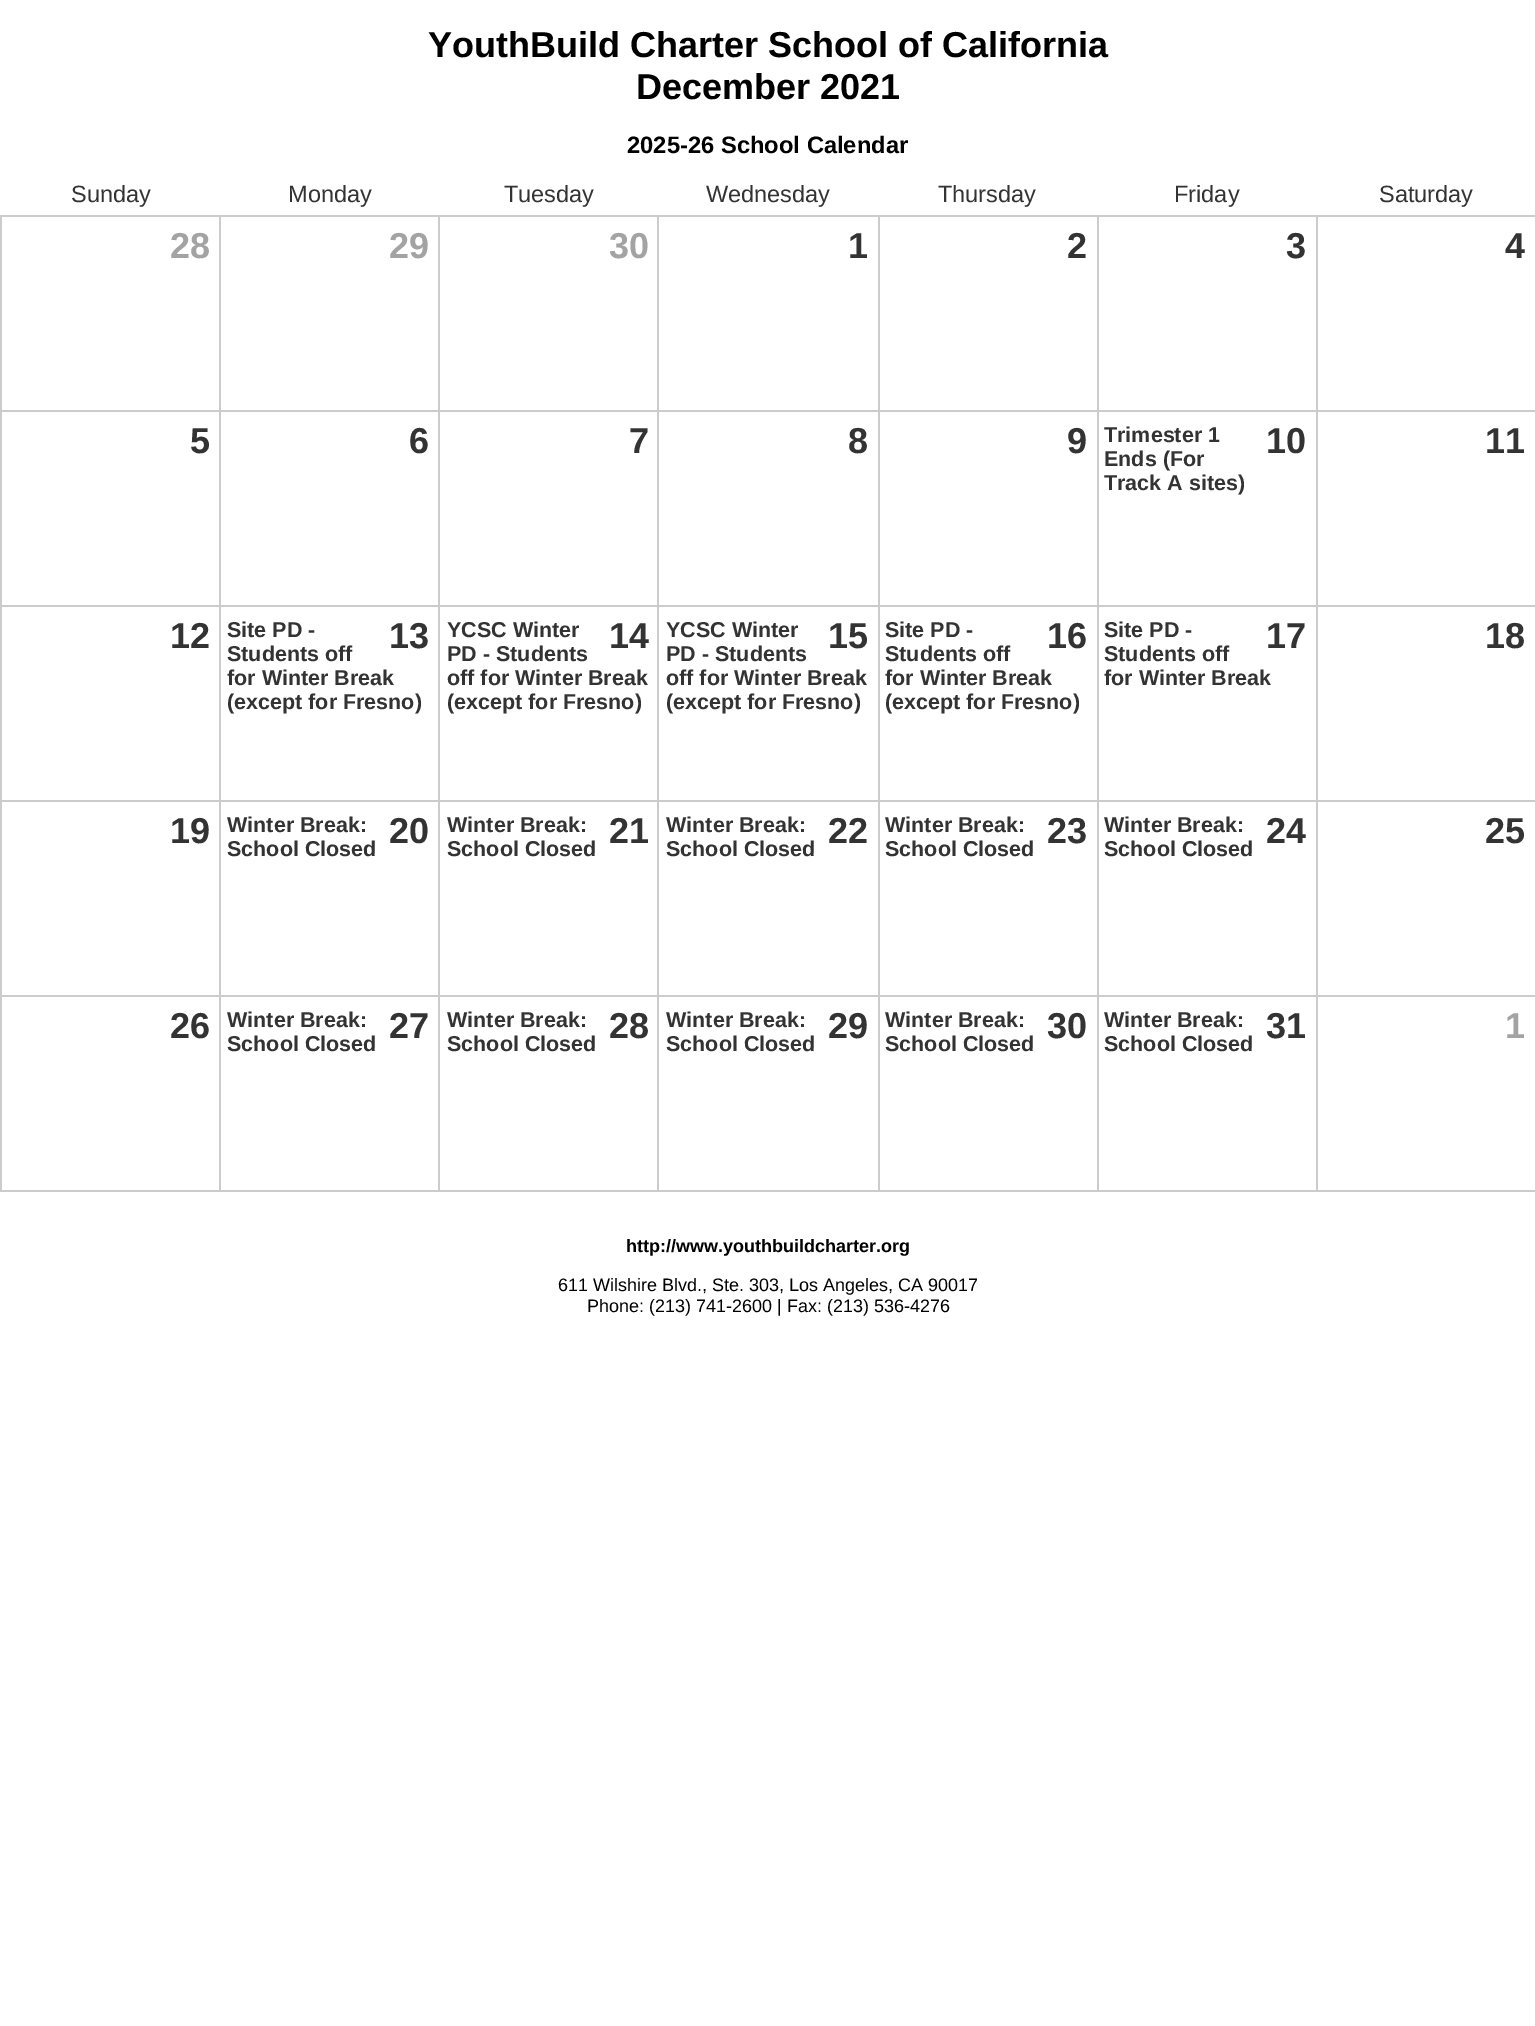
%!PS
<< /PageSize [1535 2026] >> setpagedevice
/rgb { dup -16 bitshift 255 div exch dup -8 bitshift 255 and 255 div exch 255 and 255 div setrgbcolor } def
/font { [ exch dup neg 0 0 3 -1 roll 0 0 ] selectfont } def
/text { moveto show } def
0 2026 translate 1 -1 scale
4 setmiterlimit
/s1 { /LiberationSans-Bold 36 font 16#000000 rgb } def
/s2 { /LiberationSans-Bold 23.75 font 16#000000 rgb } def
/s3 { /LiberationSans-Regular 23.5 font 16#333333 rgb } def
/s4 { /LiberationSans-Bold 36 font 16#A3A3A3 rgb } def
/s5 { /LiberationSans-Bold 36 font 16#333333 rgb } def
/s6 { /LiberationSans-Bold 21.5 font 16#333333 rgb } def
/s7 { /LiberationSans-Bold 18 font 16#000000 rgb } def
/s8 { /LiberationSans-Regular 18 font 16#000000 rgb } def
16#FFFFFF rgb
0 0 1535 2026 rectfill
s1
(YouthBuild Charter School of California) 428 57 text
(December 2021) 636 99 text
s2
(2025-26 School Calendar) 627 153 text
s3
(Sunday) 71 202 text
(Monday) 288 202 text
(Tuesday) 504 202 text
(Wednesday) 706 202 text
(Thursday) 938 202 text
(Friday) 1174 202 text
(Saturday) 1379 202 text
16#CCCCCC rgb
0 215 1535 2 rectfill
1316 1190 219 2 rectfill
1316 995 2 196 rectfill
1316 995 219 2 rectfill
1316 800 2 196 rectfill
1316 800 219 2 rectfill
1316 605 2 196 rectfill
1316 605 219 2 rectfill
1316 410 2 196 rectfill
1316 410 219 2 rectfill
1316 215 2 196 rectfill
1097 1190 220 2 rectfill
1097 995 2 196 rectfill
1097 995 220 2 rectfill
1097 800 2 196 rectfill
1097 800 220 2 rectfill
1097 605 2 196 rectfill
1097 605 220 2 rectfill
1097 410 2 196 rectfill
1097 410 220 2 rectfill
1097 215 2 196 rectfill
878 1190 220 2 rectfill
878 995 2 196 rectfill
878 995 220 2 rectfill
878 800 2 196 rectfill
878 800 220 2 rectfill
878 605 2 196 rectfill
878 605 220 2 rectfill
878 410 2 196 rectfill
878 410 220 2 rectfill
878 215 2 196 rectfill
657 1190 222 2 rectfill
657 995 2 196 rectfill
657 995 222 2 rectfill
657 800 2 196 rectfill
657 800 222 2 rectfill
657 605 2 196 rectfill
657 605 222 2 rectfill
657 410 2 196 rectfill
657 410 222 2 rectfill
657 215 2 196 rectfill
438 1190 221 2 rectfill
438 995 2 196 rectfill
438 995 221 2 rectfill
438 800 2 196 rectfill
438 800 221 2 rectfill
438 605 2 196 rectfill
438 605 221 2 rectfill
438 410 2 196 rectfill
438 410 221 2 rectfill
438 215 2 196 rectfill
219 1190 221 2 rectfill
219 995 2 196 rectfill
219 995 221 2 rectfill
219 800 2 196 rectfill
219 800 221 2 rectfill
219 605 2 196 rectfill
219 605 221 2 rectfill
219 410 2 196 rectfill
219 410 221 2 rectfill
219 215 2 196 rectfill
0 1190 221 2 rectfill
0 995 2 196 rectfill
0 995 221 2 rectfill
0 800 2 196 rectfill
0 800 221 2 rectfill
0 605 2 196 rectfill
0 605 221 2 rectfill
0 410 2 196 rectfill
0 410 221 2 rectfill
0 215 2 196 rectfill
s4
(28) 170 258 text
(29) 389 258 text
(30) 609 258 text
s5
(1) 848 258 text
(2) 1067 258 text
(3) 1286 258 text
(4) 1505 258 text
(5) 190 453 text
(6) 409 453 text
(7) 629 453 text
(8) 848 453 text
(9) 1067 453 text
s6
(Trimester 1) 1104 442 text
(Ends \(For) 1104 466 text
(Track A sites\)) 1104 490 text
s5
(10) 1266 453 text
(11) 1485 453 text
(12) 170 648 text
s6
(Site PD -) 227 637 text
(Students off) 227 661 text
(for Winter Break) 227 685 text
(\(except for Fresno\)) 227 709 text
s5
(13) 389 648 text
s6
(YCSC Winter) 447 637 text
(PD - Students) 447 661 text
(off for Winter Break) 447 685 text
(\(except for Fresno\)) 447 709 text
s5
(14) 609 648 text
s6
(YCSC Winter) 666 637 text
(PD - Students) 666 661 text
(off for Winter Break) 666 685 text
(\(except for Fresno\)) 666 709 text
s5
(15) 828 648 text
s6
(Site PD -) 885 637 text
(Students off) 885 661 text
(for Winter Break) 885 685 text
(\(except for Fresno\)) 885 709 text
s5
(16) 1047 648 text
s6
(Site PD -) 1104 637 text
(Students off) 1104 661 text
(for Winter Break) 1104 685 text
s5
(17) 1266 648 text
(18) 1485 648 text
(19) 170 843 text
s6
(Winter Break:) 227 832 text
(School Closed) 227 856 text
s5
(20) 389 843 text
s6
(Winter Break:) 447 832 text
(School Closed) 447 856 text
s5
(21) 609 843 text
s6
(Winter Break:) 666 832 text
(School Closed) 666 856 text
s5
(22) 828 843 text
s6
(Winter Break:) 885 832 text
(School Closed) 885 856 text
s5
(23) 1047 843 text
s6
(Winter Break:) 1104 832 text
(School Closed) 1104 856 text
s5
(24) 1266 843 text
(25) 1485 843 text
(26) 170 1038 text
s6
(Winter Break:) 227 1027 text
(School Closed) 227 1051 text
s5
(27) 389 1038 text
s6
(Winter Break:) 447 1027 text
(School Closed) 447 1051 text
s5
(28) 609 1038 text
s6
(Winter Break:) 666 1027 text
(School Closed) 666 1051 text
s5
(29) 828 1038 text
s6
(Winter Break:) 885 1027 text
(School Closed) 885 1051 text
s5
(30) 1047 1038 text
s6
(Winter Break:) 1104 1027 text
(School Closed) 1104 1051 text
s5
(31) 1266 1038 text
s4
(1) 1505 1038 text
s7
(http://www.youthbuildcharter.org) 626 1252 text
s8
(611 Wilshire Blvd., Ste. 303, Los Angeles, CA 90017) 558 1291 text
(Phone: \(213\) 741-2600 | Fax: \(213\) 536-4276) 587 1312 text
showpage
